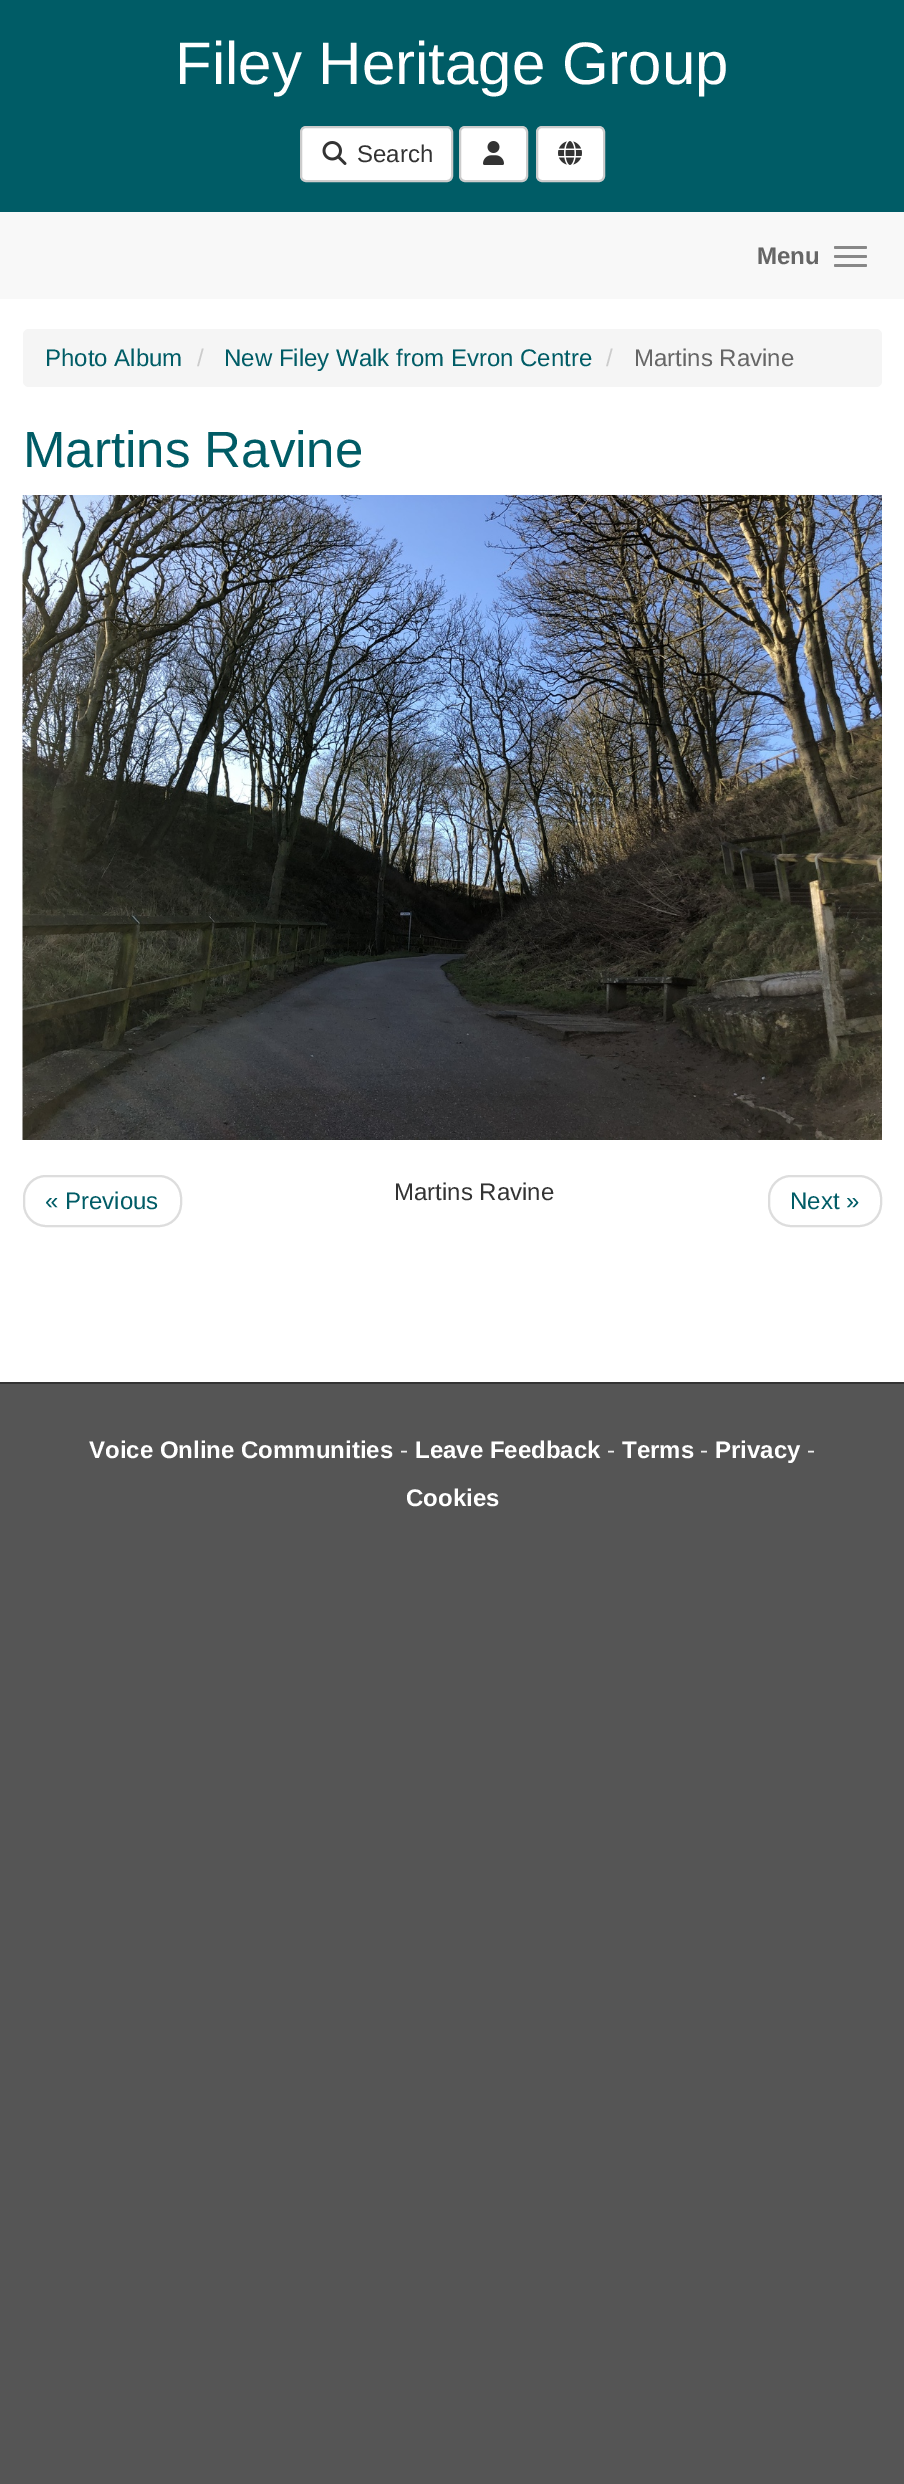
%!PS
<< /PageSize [904 2484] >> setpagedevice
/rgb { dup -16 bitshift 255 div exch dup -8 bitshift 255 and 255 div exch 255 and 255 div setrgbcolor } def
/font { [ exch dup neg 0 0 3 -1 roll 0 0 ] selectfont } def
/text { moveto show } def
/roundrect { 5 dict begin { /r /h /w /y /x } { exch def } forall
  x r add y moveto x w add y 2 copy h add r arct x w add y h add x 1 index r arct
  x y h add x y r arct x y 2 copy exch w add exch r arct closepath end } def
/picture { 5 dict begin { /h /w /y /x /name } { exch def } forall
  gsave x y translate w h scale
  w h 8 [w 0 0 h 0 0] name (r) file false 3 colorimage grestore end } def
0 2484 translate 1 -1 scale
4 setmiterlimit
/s1 { /LiberationSans-Regular 60 font 16#FFFFFF rgb } def
/s2 { /LiberationSans-Regular 24 font 16#333333 rgb } def
/s3 { /LiberationSans-Bold 24 font 16#666666 rgb } def
/s4 { /LiberationSans-Regular 24 font 16#005C66 rgb } def
/s5 { /LiberationSans-Regular 24 font 16#CCCCCC rgb } def
/s6 { /LiberationSans-Regular 24 font 16#666666 rgb } def
/s7 { /LiberationSans-Regular 51 font 16#005C66 rgb } def
/s8 { /LiberationSans-Bold 24 font 16#FFFFFF rgb } def
/s9 { /LiberationSans-Regular 24 font 16#EEEEEE rgb } def
16#FFFFFF rgb
0 0 904 2484 rectfill
16#005C66 rgb
0 0 904 212 rectfill
s1
(Filey Heritage Group) 175 84 text
301 127 151 54 5 roundrect gsave fill grestore
16#CCCCCC rgb
2 setlinewidth
stroke
(pic1.raw) 322 141 25 24 picture
s2
(Search) 357 162 text
16#FFFFFF rgb
460 127 67 54 5 roundrect gsave fill grestore
16#CCCCCC rgb
stroke
(pic2.raw) 483 141 21 24 picture
16#FFFFFF rgb
537 127 67 54 5 roundrect gsave fill grestore
16#CCCCCC rgb
stroke
(pic3.raw) 558 141 24 24 picture
16#F8F8F8 rgb
0 212 904 87 rectfill
s3
(Menu) 757 264 text
16#888888 rgb
834 246 33 3 1.5 roundrect fill
834 255 33 3 1.5 roundrect fill
834 264 33 3 1.5 roundrect fill
16#F5F5F5 rgb
23 329 859 58 6 roundrect fill
s4
(Photo Album) 45 366 text
s5
(/) 197 366 text
s4
(New Filey Walk from Evron Centre) 224 366 text
s5
(/) 606 366 text
s6
(Martins Ravine) 634 366 text
s7
(Martins Ravine) 23 467 text
(pic4.raw) 22 495 860 645 picture
16#DDDDDD rgb
24 1176 157 50 22 roundrect stroke
s4
(« Previous) 45 1209 text
s2
(Martins Ravine) 394 1200 text
16#DDDDDD rgb
769 1176 112 50 22 roundrect stroke
s4
(Next ») 790 1209 text
16#555555 rgb
-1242 1382 moveto -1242 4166 lineto 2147 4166 lineto 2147 1382 lineto 904 1382 lineto 904 1682 lineto 0 1682 lineto 0 1382 lineto closepath fill
0 1384 904 298 rectfill
16#333333 rgb
0 1382 904 2 rectfill
s8
(Voice Online Communities) 89 1458 text
s9
(-) 400 1458 text
s8
(Leave Feedback) 415 1458 text
s9
(-) 607 1458 text
s8
(Terms) 622 1458 text
s9
(-) 700 1458 text
s8
(Privacy) 715 1458 text
s9
(-) 807 1458 text
s8
(Cookies) 406 1506 text
showpage
